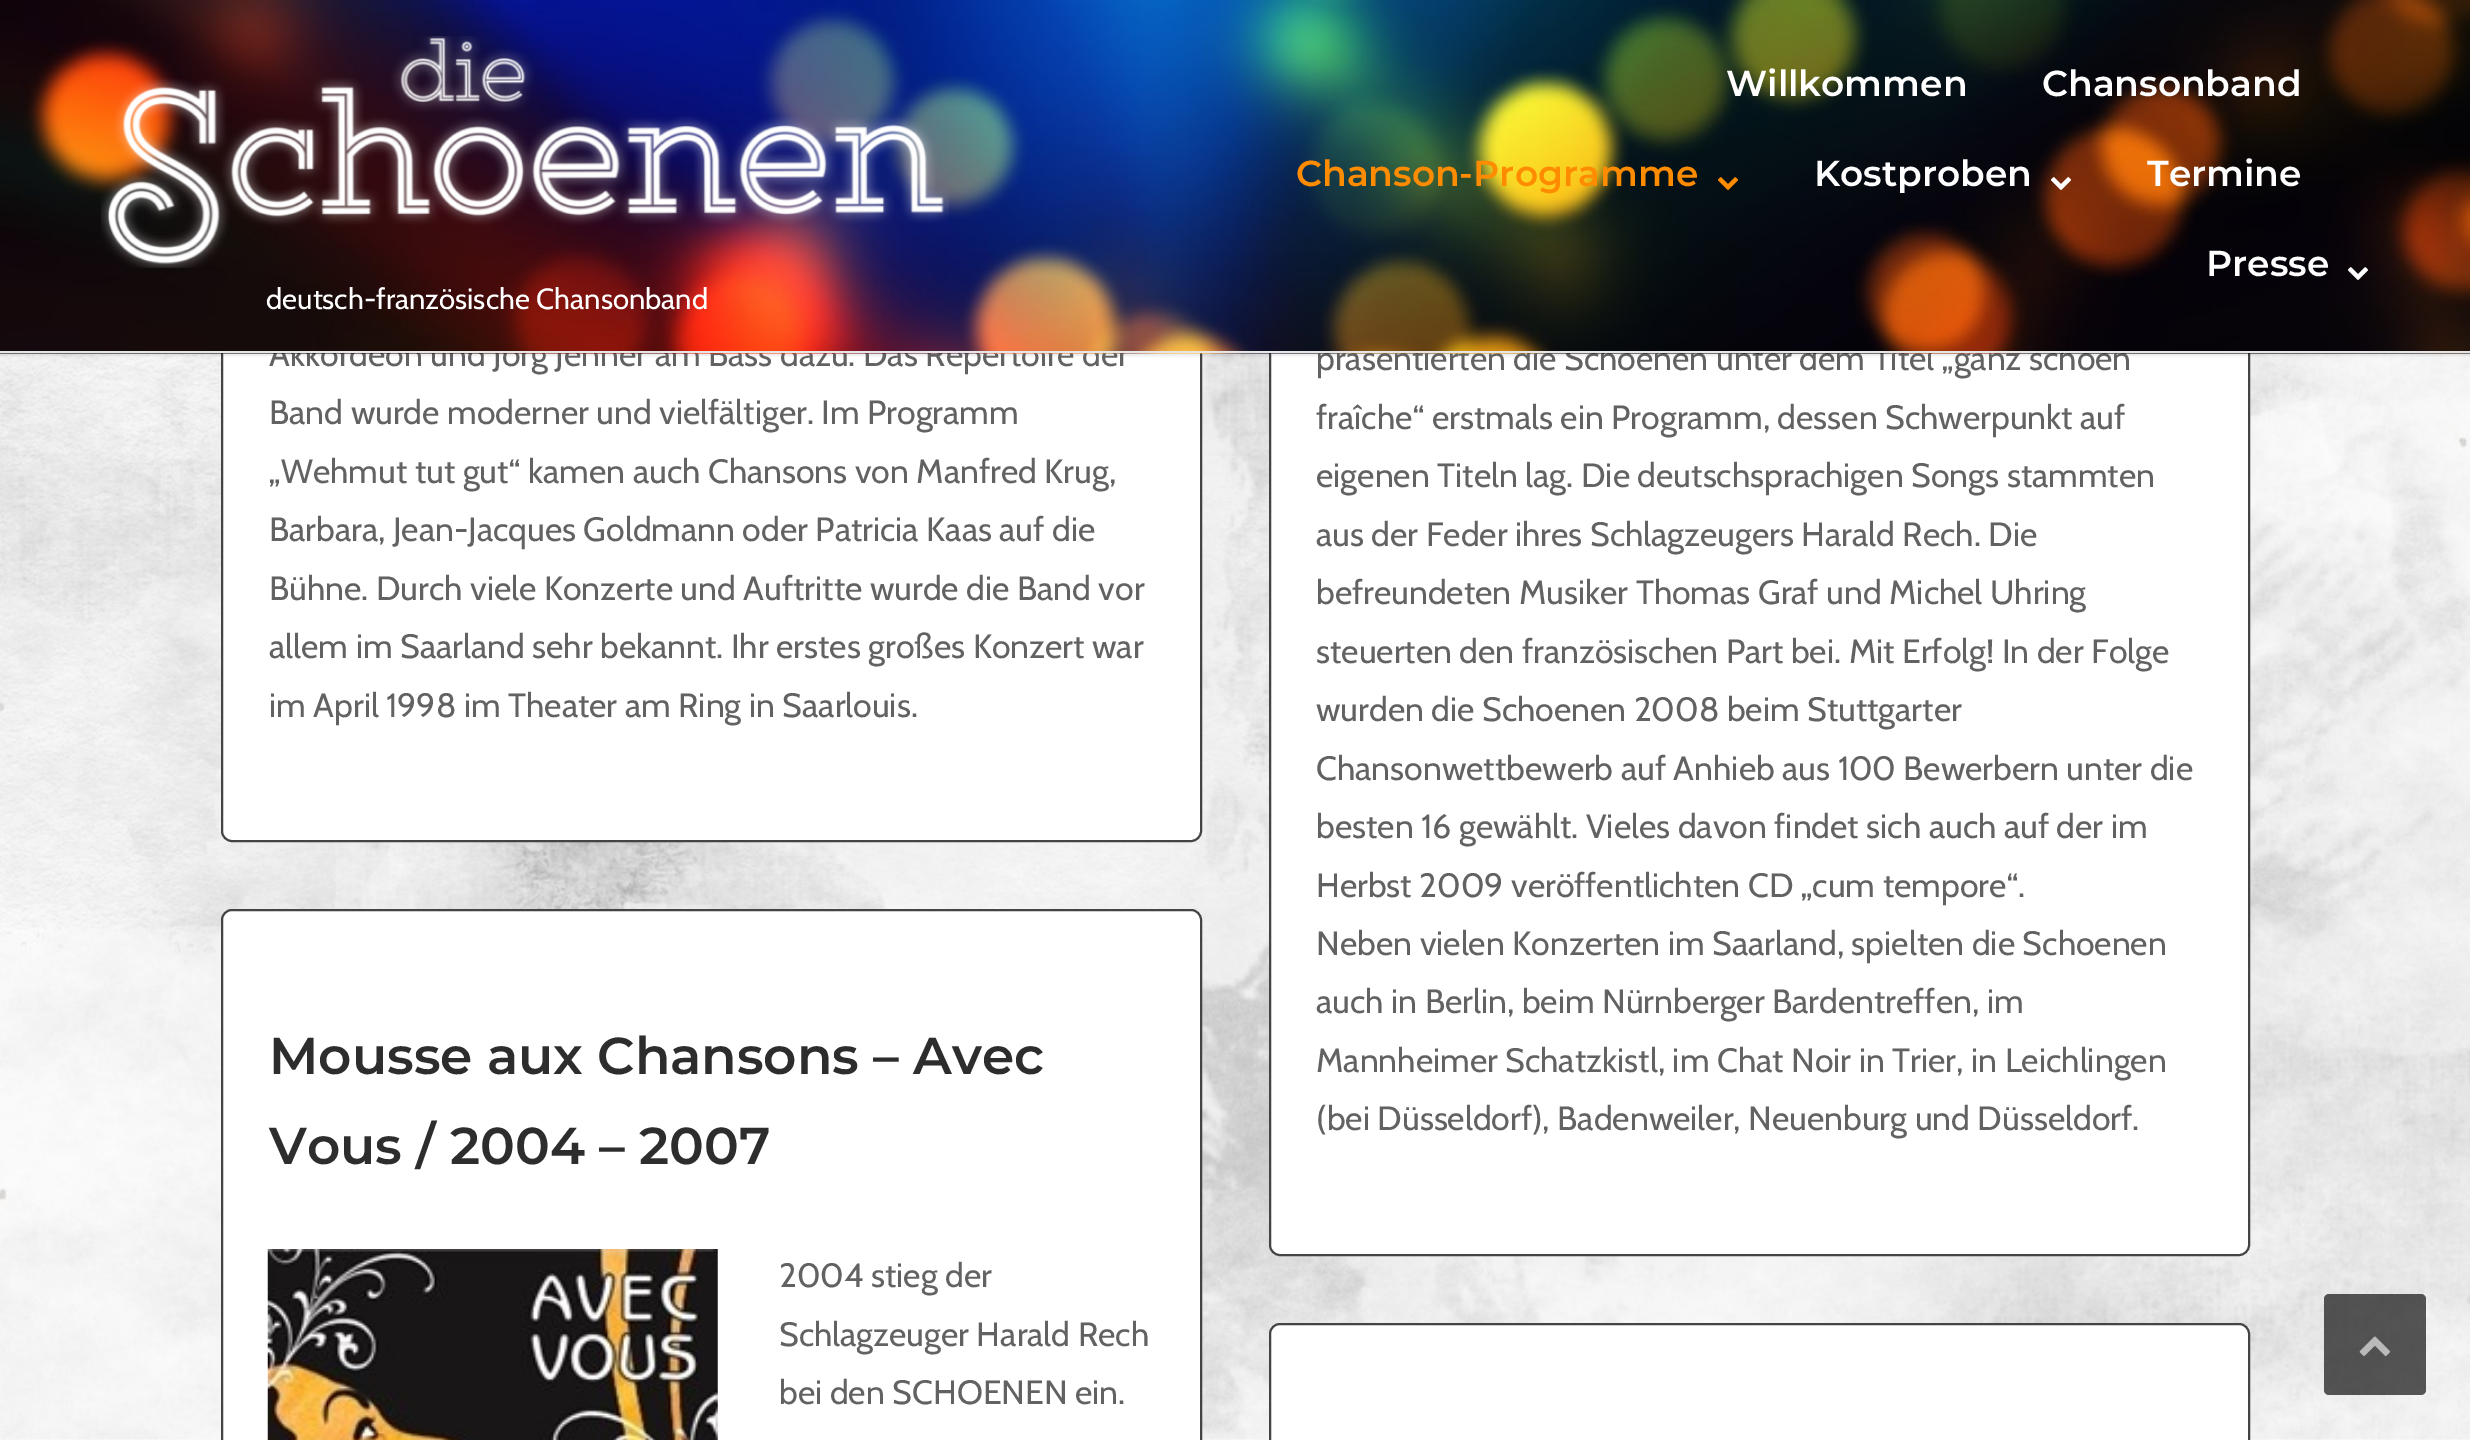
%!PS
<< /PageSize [2470 1440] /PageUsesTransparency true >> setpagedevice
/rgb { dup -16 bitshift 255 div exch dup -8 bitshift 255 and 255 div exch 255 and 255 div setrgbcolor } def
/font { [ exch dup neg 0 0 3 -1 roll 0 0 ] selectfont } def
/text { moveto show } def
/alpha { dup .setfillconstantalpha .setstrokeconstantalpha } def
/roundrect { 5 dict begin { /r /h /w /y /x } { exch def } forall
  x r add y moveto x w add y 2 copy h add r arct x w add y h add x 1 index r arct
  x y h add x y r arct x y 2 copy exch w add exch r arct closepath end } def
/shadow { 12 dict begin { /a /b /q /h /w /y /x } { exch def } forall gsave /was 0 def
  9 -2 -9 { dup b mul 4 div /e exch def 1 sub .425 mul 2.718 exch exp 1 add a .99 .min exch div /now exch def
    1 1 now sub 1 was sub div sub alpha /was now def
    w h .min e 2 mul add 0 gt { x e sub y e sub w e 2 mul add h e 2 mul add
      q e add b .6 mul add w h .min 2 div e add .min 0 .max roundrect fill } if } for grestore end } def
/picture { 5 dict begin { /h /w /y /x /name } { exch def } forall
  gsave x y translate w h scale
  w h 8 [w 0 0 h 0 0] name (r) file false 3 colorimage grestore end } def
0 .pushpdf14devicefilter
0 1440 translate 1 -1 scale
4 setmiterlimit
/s1 { /Cabin-Regular 33.75 font 16#626262 rgb } def
/s2 { /Montserrat-SemiBold 36 font 16#FFFFFF rgb } def
/s3 { /Montserrat-SemiBold 36 font 16#FF8C00 rgb } def
/s4 { /Cabin-Regular 29.25 font 16#FFFFFF rgb } def
/s5 { /Montserrat-SemiBold 51.75 font 16#2D2D2D rgb } def
16#FFFFFF rgb
0 0 2470 1440 rectfill
(pic1.raw) 0 353 2470 1087 picture
222 -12 979 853 10 roundrect gsave fill grestore
16#444444 rgb
2 setlinewidth
stroke
16#FFFFFF rgb
1270 -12 979 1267 10 roundrect gsave fill grestore
16#444444 rgb
stroke
16#000000 rgb
0 2 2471 354 0 1 0.07 shadow
s1
(Akkordeon und Jörg Jenner am Bass dazu. Das Repertoire der) 269 366 text
(präsentierten die Schoenen unter dem Titel „ganz schoen) 1316 370 text
(pic2.raw) 0 0 2470 354 picture
16#E6E6E6 rgb
0 351 2470 2 rectfill
s2
(Willkommen) 1726 96 text
(Chansonband) 2042 96 text
s3
(Chanson-Programme) 1296 186 text
(pic3.raw) 1717 177 22 13 picture
s2
(Kostproben) 1814 186 text
(pic4.raw) 2050 177 22 13 picture
(Termine) 2147 186 text
(Presse) 2206 276 text
(pic5.raw) 2347 267 22 13 picture
(pic6.raw) 101 36 849 232 picture
s4
(deutsch-französische Chansonband) 266 309 text
s1
(Band wurde moderner und vielfältiger. Im Programm) 269 424 text
(„Wehmut tut gut“ kamen auch Chansons von Manfred Krug,) 269 483 text
(Barbara, Jean-Jacques Goldmann oder Patricia Kaas auf die) 269 541 text
(Bühne. Durch viele Konzerte und Auftritte wurde die Band vor) 269 600 text
(allem im Saarland sehr bekannt. Ihr erstes großes Konzert war) 269 658 text
(im April 1998 im Theater am Ring in Saarlouis.) 269 717 text
16#FFFFFF rgb
222 910 979 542 10 roundrect gsave fill grestore
16#444444 rgb
stroke
s5
(Mousse aux Chansons – Avec) 269 1074 text
(Vous / 2004 – 2007) 269 1164 text
(pic7.raw) 267 1249 451 191 picture
s1
(2004 stieg der) 779 1287 text
(Schlagzeuger Harald Rech) 779 1346 text
(bei den SCHOENEN ein.) 779 1404 text
(fraîche“ erstmals ein Programm, dessen Schwerpunkt auf) 1316 429 text
(eigenen Titeln lag. Die deutschsprachigen Songs stammten) 1316 487 text
(aus der Feder ihres Schlagzeugers Harald Rech. Die) 1316 546 text
(befreundeten Musiker Thomas Graf und Michel Uhring) 1316 604 text
(steuerten den französischen Part bei. Mit Erfolg! In der Folge) 1316 663 text
(wurden die Schoenen 2008 beim Stuttgarter) 1316 721 text
(Chansonwettbewerb auf Anhieb aus 100 Bewerbern unter die) 1316 780 text
(besten 16 gewählt. Vieles davon findet sich auch auf der im) 1316 838 text
(Herbst 2009 veröffentlichten CD „cum tempore“.) 1316 897 text
(Neben vielen Konzerten im Saarland, spielten die Schoenen) 1316 955 text
(auch in Berlin, beim Nürnberger Bardentreffen, im) 1316 1013 text
(Mannheimer Schatzkistl, im Chat Noir in Trier, in Leichlingen) 1316 1072 text
(\(bei Düsseldorf\), Badenweiler, Neuenburg und Düsseldorf.) 1316 1130 text
16#FFFFFF rgb
1270 1324 979 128 10 roundrect gsave fill grestore
16#444444 rgb
stroke
0.65 alpha
16#000000 rgb
2324 1294 102 101 5 roundrect fill
1 alpha
(pic8.raw) 2359 1336 31 20 picture
.poppdf14devicefilter showpage
